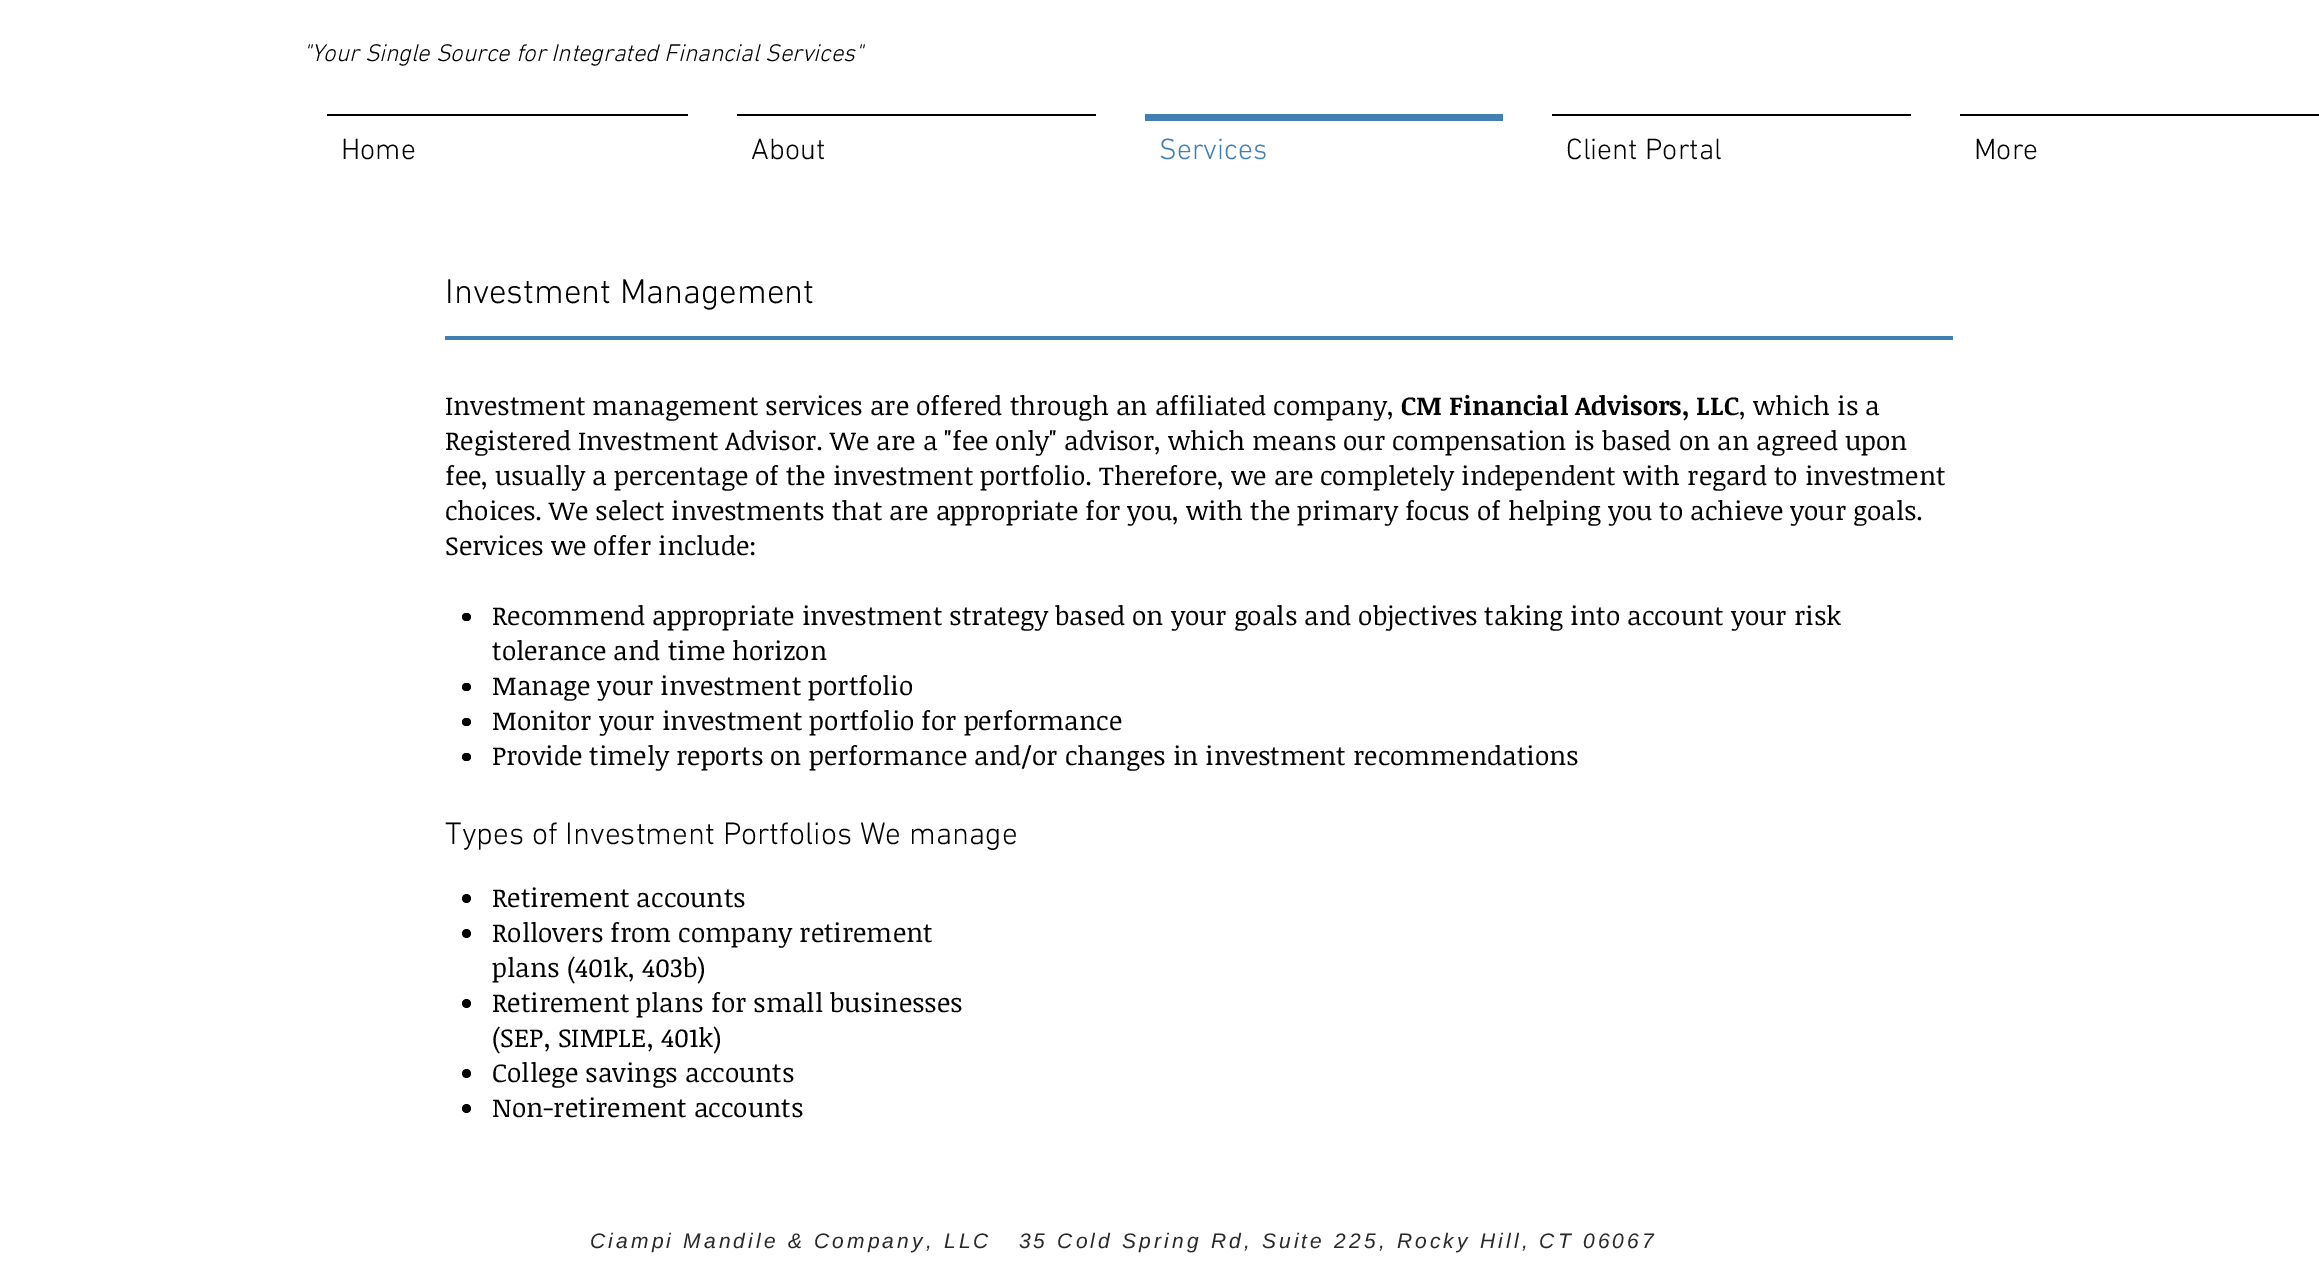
%!PS
<< /PageSize [2319 1266] >> setpagedevice
/rgb { dup -16 bitshift 255 div exch dup -8 bitshift 255 and 255 div exch 255 and 255 div setrgbcolor } def
/font { [ exch dup neg 0 0 3 -1 roll 0 0 ] selectfont } def
/text { moveto show } def
/circle { newpath 0 360 arc closepath } def
/roundrect { 5 dict begin { /r /h /w /y /x } { exch def } forall
  x r add y moveto x w add y 2 copy h add r arct x w add y h add x 1 index r arct
  x y h add x y r arct x y 2 copy exch w add exch r arct closepath end } def
0 1266 translate 1 -1 scale
4 setmiterlimit
/s1 { /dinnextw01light-LightItalic 24.5 font 16#000000 rgb } def
/s2 { /dinnextw01light-Light 29.75 font 16#000000 rgb } def
/s3 { /dinnextw01light-Light 29.75 font 16#427FB2 rgb } def
/s4 { /dinnextw01light-Light 35 font 16#000000 rgb } def
/s5 { /NoticiaText-Regular 26.25 font 16#000000 rgb } def
/s6 { /NoticiaText-Bold 26.25 font 16#000000 rgb } def
/s7 { /dinnextw01light-Light 31.5 font 16#000000 rgb } def
16#FFFFFF rgb
0 0 2319 1266 rectfill
s1
("Your Single Source for Integrated Financial Services") 303 61 text
327 114 361 2 rectfill
s2
(Home) 341 159 text
737 114 359 2 rectfill
(About) 751 159 text
16#427FB2 rgb
1145 114 358 7 rectfill
(Services) 1159 159 text
16#000000 rgb
1552 114 359 2 rectfill
(Client Portal) 1566 159 text
1960 114 359 2 rectfill
(More) 1974 159 text
s4
(Investment Management) 445 303 text
16#427FB2 rgb
445 336 1508 4 rectfill
s5
(Investment management services are offered through an affiliated company,) 445 415 text
s6
(CM Financial Advisors, LLC) 1401 415 text
s5
(, which is a) 1739 415 text
(Registered Investment Advisor. We are a "fee only" advisor, which means our compensation is based on an agreed upon) 445 450 text
(fee, usually a percentage of the investment portfolio. Therefore, we are completely independent with regard to investment) 445 485 text
(choices. We select investments that are appropriate for you, with the primary focus of helping you to achieve your goals.) 445 520 text
(Services we offer include:) 445 555 text
462 613 9 8 4 roundrect fill
(Recommend appropriate investment strategy based on your goals and objectives taking into account your risk) 492 625 text
(tolerance and time horizon) 492 660 text
462 683 9 8 4 roundrect fill
(Manage your investment portfolio) 492 695 text
462 718 9 8 4 roundrect fill
(Monitor your investment portfolio for performance) 492 730 text
462 753 9 8 4 roundrect fill
(Provide timely reports on performance and/or changes in investment recommendations) 492 765 text
s7
(Types of Investment Portfolios We manage) 445 844 text
466.5 898.5 4.5 circle fill
s5
(Retirement accounts) 492 907 text
466.5 933.5 4.5 circle fill
(Rollovers from company retirement) 492 942 text
(plans \(401k, 403b\)) 492 977 text
466.5 1003.5 4.5 circle fill
(Retirement plans for small businesses) 492 1012 text
(\(SEP, SIMPLE, 401k\)) 492 1047 text
466.5 1073.5 4.5 circle fill
(College savings accounts) 492 1082 text
466.5 1108.5 4.5 circle fill
(Non-retirement accounts) 492 1117 text
/LiberationSans-Italic 21 font
16#292929 rgb
590 1248 moveto 3.15 0 (Ciampi Mandile & Company, LLC   35 Cold Spring Rd, Suite 225, Rocky Hill, CT 06067) ashow
showpage
